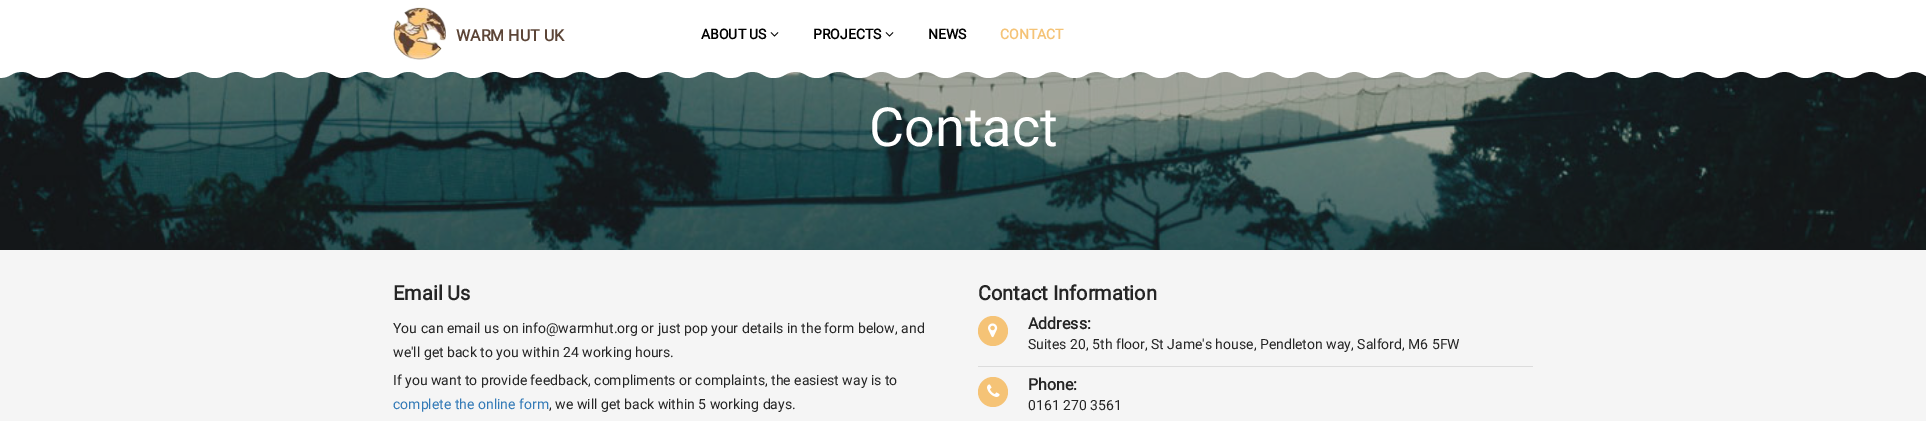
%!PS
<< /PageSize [1926 421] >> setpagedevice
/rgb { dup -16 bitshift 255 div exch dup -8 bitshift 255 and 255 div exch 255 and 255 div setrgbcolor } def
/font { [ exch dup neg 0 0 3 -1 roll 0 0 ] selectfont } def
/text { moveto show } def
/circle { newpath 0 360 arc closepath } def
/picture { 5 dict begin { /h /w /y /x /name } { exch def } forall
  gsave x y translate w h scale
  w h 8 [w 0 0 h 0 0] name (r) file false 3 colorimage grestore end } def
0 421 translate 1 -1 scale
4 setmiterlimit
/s1 { /Roboto-Bold 16 font 16#5C4537 rgb } def
/s2 { /Roboto-Bold 14 font 16#000000 rgb } def
/s3 { /Roboto-Bold 14 font 16#F5C376 rgb } def
/s4 { /Roboto-Regular 54 font 16#FFFFFF rgb } def
/s5 { /Roboto-Bold 20 font 16#252525 rgb } def
/s6 { /Roboto-Regular 14 font 16#252525 rgb } def
/s7 { /Roboto-Regular 14 font 16#337AB7 rgb } def
/s8 { /Roboto-Bold 16 font 16#252525 rgb } def
16#F5F5F5 rgb
0 0 1926 421 rectfill
16#FFFFFF rgb
0 0 1926 70 rectfill
(pic1.raw) 393 7 53 53 picture
s1
(WARM HUT UK) 456 41 text
s2
(ABOUT US) 701 39 text
(pic2.raw) 770 32 9 5 picture
(PROJECTS) 813 39 text
(pic2.raw) 885 32 9 5 picture
(NEWS) 928 39 text
s3
(CONTACT) 1000 39 text
(pic4.raw) 0 72 1926 178 picture
(pic3.raw) 0 70 1926 8 picture
s4
(Contact) 869 146 text
s5
(Email Us) 393 300 text
s6
(You can email us on info@warmhut.org or just pop your details in the form below, and) 393 333 text
(we'll get back to you within 24 working hours.) 393 357 text
(If you want to provide feedback, compliments or complaints, the easiest way is to) 393 385 text
s7
(complete the online form) 393 409 text
s6
(, we will get back within 5 working days.) 549 409 text
s5
(Contact Information) 978 300 text
16#DCDCDC rgb
978 366 555 1 rectfill
16#F5C376 rgb
993 331 15 circle fill
(pic5.raw) 988 323 10 15 picture
s8
(Address:) 1028 329 text
s6
(Suites 20, 5th floor, St Jame's house, Pendleton way, Salford, M6 5FW) 1028 349 text
16#F5C376 rgb
993 392 15 circle fill
(pic6.raw) 987 384 13 13 picture
s8
(Phone:) 1028 390 text
s6
(0161 270 3561) 1028 410 text
showpage
